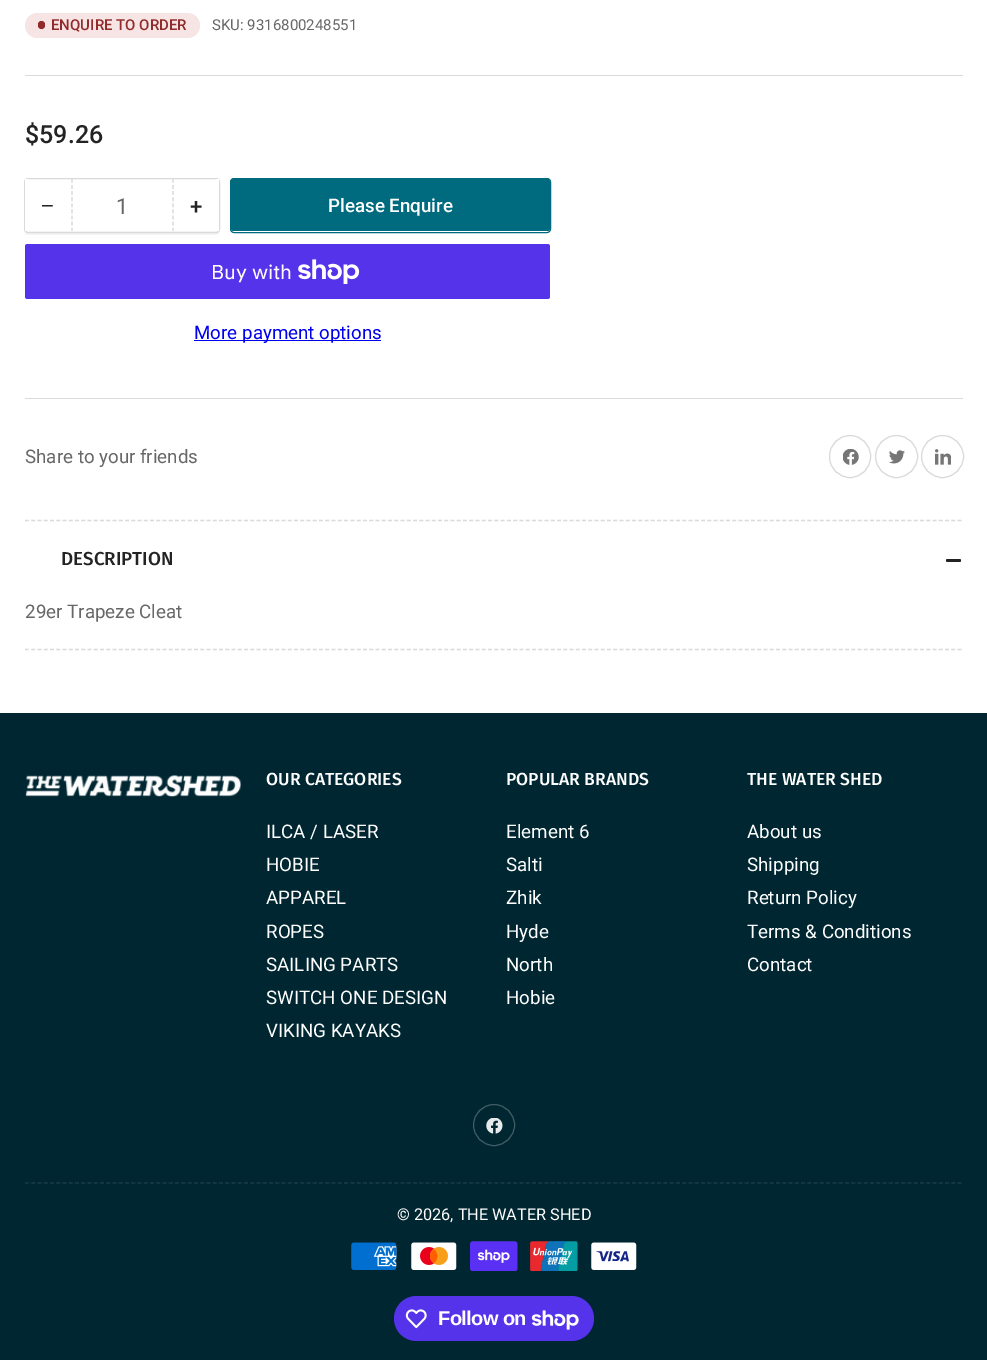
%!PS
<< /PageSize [987 1360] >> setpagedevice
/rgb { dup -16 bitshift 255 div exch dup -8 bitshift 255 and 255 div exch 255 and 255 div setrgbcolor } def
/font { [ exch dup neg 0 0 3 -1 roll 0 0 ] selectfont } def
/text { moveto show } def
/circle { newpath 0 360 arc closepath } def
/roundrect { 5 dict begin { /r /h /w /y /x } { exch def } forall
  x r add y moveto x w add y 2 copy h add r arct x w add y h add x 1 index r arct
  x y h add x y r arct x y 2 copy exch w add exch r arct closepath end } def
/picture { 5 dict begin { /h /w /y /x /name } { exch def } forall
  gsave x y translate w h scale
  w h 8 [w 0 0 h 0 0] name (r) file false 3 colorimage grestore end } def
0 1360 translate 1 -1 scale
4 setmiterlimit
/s1 { /Roboto-Medium 15 font 16#922C2C rgb } def
/s2 { /Roboto-Regular 15 font 16#676767 rgb } def
/s3 { /Roboto-Medium 25 font 16#232323 rgb } def
/s4 { /LiberationSans-Regular 22 font 16#232323 rgb } def
/s5 { /Roboto-Regular 22 font 16#676767 rgb } def
/s6 { /Roboto-Medium 22 font 16#232323 rgb } def
/s7 { /Roboto-Medium 18.75 font 16#FFFFFF rgb } def
/s8 { /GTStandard-Regular 20 font 16#FFFFFF rgb } def
/s9 { /Roboto-Regular 18.75 font 16#0000EE rgb } def
/s10 { /Roboto-Regular 18.75 font 16#676767 rgb } def
/s11 { /FiraSans-Medium 18.75 font 16#232323 rgb } def
/s12 { /FiraSans-Medium 17.5 font 16#FFFFFF rgb } def
/s13 { /Roboto-Regular 18.75 font 16#FFFFFF rgb } def
/s14 { /Roboto-Regular 16.25 font 16#FFFFFF rgb } def
16#FFFFFF rgb
0 0 987 1360 rectfill
16#DADADA rgb
25 75 938 1 rectfill
16#F7E5E5 rgb
25 13 175 25 12.5 roundrect fill
16#922C2C rgb
38 21 7 8 3.5 roundrect fill
s1
(ENQUIRE TO ORDER) 51 30 text
s2
(SKU: 9316800248551) 212 30 text
s3
($59.26) 25 143 text
16#F4F4F4 rgb
25 229 moveto 25 232 lineto 25 234 26 235 28 235 curveto 216 235 lineto 218 235 219 234 219 232 curveto 219 184 lineto 219 229 lineto 219 230 218 231 216 231 curveto 28 231 lineto 26 231 25 230 25 229 curveto closepath fill
16#DADADA rgb
24.5 178.5 195 54 3.5 roundrect stroke
16#FFFFFF rgb
25 179 3 52 rectfill
s4
(−) 41 213 text
16#DADADA rgb
1.2 setlinewidth
[3.75 2.35] 0 setdash
173 179 moveto 173 231 lineto stroke
72 179 moveto 72 231 lineto stroke
s5
(1) 116 214 text
16#FFFFFF rgb
216 179 3 52 rectfill
s6
(+) 190 214 text
16#006B7F rgb
1 setlinewidth
[] 0 setdash
230.5 178.5 320 54 3.5 roundrect stroke
231 179 319 52 2.5 roundrect fill
s7
(Please Enquire) 328 212 text
16#5433EB rgb
25 244 525 55 2.5 roundrect fill
s8
(Buy with) 211 279 text
(pic1.raw) 298 259 62 25 picture
16#0000EE rgb
194 340 187 1 rectfill
s9
(More payment options) 194 339 text
16#DADADA rgb
25 398 938 1 rectfill
s10
(Share to your friends) 25 463 text
16#D9D9D9 rgb
829.5 435.5 41 42 20.5 roundrect stroke
(pic2.raw) 843 449 16 16 picture
896.5 456.5 21 circle stroke
(pic3.raw) 889 450 16 14 picture
942.5 456.5 21 circle stroke
(pic4.raw) 935 449 16 16 picture
16#DADADA rgb
1.2 setlinewidth
[3.75 2.51] 0 setdash
25 520.5 moveto 962.5 520.5 lineto stroke
25 649.5 moveto 962.5 649.5 lineto stroke
s11
(DESCRIPTION) 61 565 text
946 559 9 3 1.5 roundrect fill
951 559 10 3 1.5 roundrect fill
s10
(29er Trapeze Cleat) 25 618 text
16#002731 rgb
0 713 987 647 rectfill
(pic5.raw) 25 775 216 22 picture
s12
(OUR CATEGORIES) 266 785 text
s13
(ILCA / LASER) 266 838 text
(HOBIE) 266 871 text
(APPAREL) 266 904 text
(ROPES) 266 938 text
(SAILING PARTS) 266 971 text
(SWITCH ONE DESIGN) 266 1004 text
(VIKING KAYAKS) 266 1037 text
s12
(POPULAR BRANDS) 506 785 text
s13
(Element 6) 506 838 text
(Salti) 506 871 text
(Zhik) 506 904 text
(Hyde) 506 938 text
(North) 506 971 text
(Hobie) 506 1004 text
s12
(THE WATER SHED) 747 785 text
s13
(About us) 747 838 text
(Shipping) 747 871 text
(Return Policy) 747 904 text
(Terms & Conditions) 747 938 text
(Contact) 747 971 text
16#405D65 rgb
1 setlinewidth
[] 0 setdash
494 1125 20.5 circle stroke
(pic6.raw) 486 1118 17 16 picture
16#1A3D46 rgb
1.2 setlinewidth
[3.75 2.51] 0 setdash
25 1183 moveto 962.5 1183 lineto stroke
s14
(© 2026, THE WATER SHED) 397 1220 text
(pic7.raw) 351 1242 46 28 picture
(pic8.raw) 411 1242 46 28 picture
(pic9.raw) 470 1241 48 30 picture
(pic10.raw) 530 1241 48 30 picture
(pic11.raw) 591 1242 46 28 picture
16#5433EB rgb
394 1296 200 45 22.5 roundrect fill
(pic12.raw) 405 1309 22 20 picture
/LiberationSans-Bold 20 font
16#FFFFFF rgb
438 1325 moveto -0.6 0 (Follow on) ashow
(pic13.raw) 531 1310 48 20 picture
showpage
